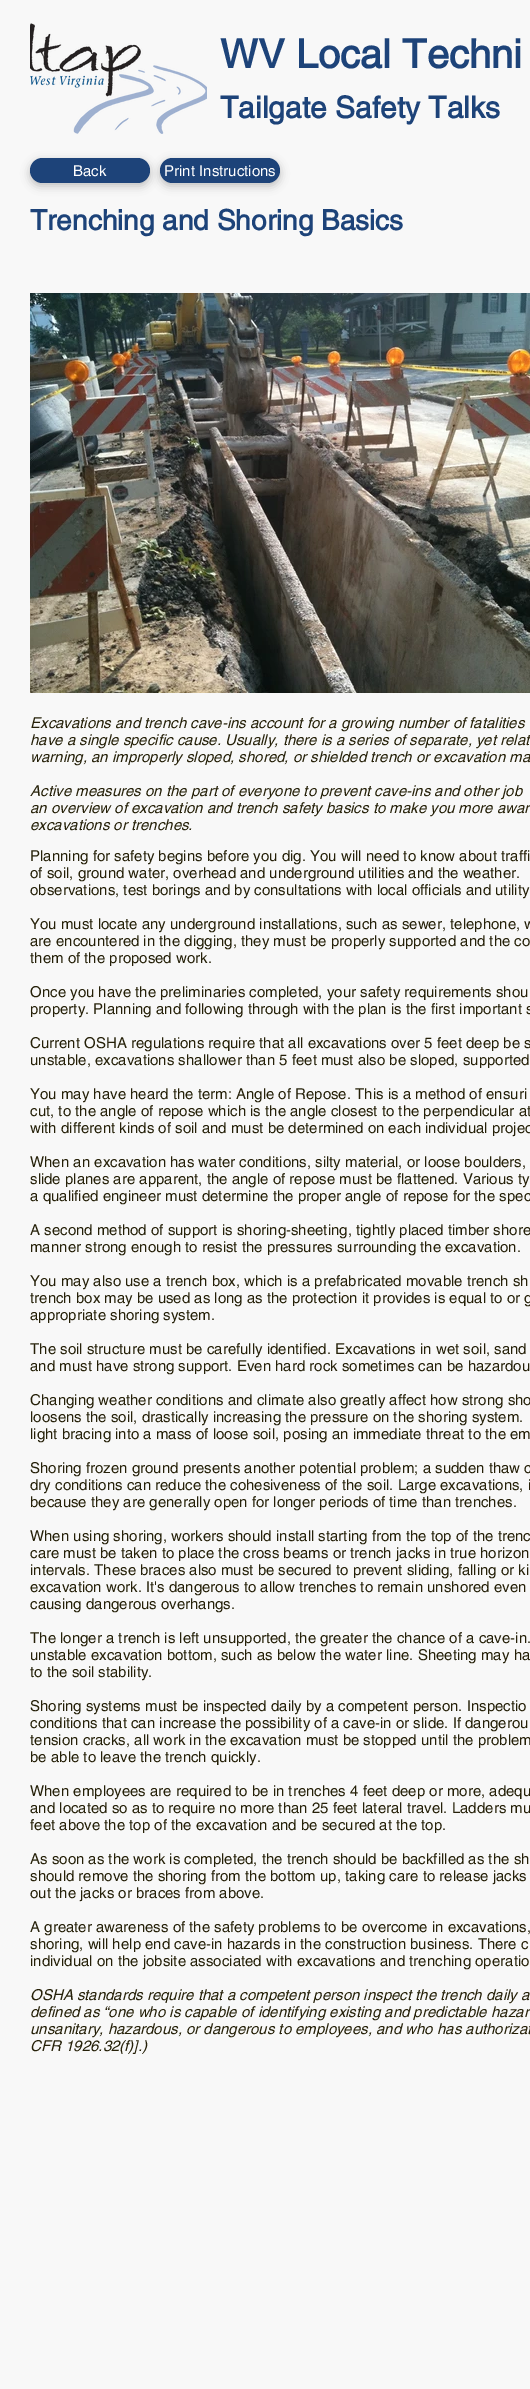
%!PS
<< /PageSize [530 2389] /PageUsesTransparency true >> setpagedevice
/rgb { dup -16 bitshift 255 div exch dup -8 bitshift 255 and 255 div exch 255 and 255 div setrgbcolor } def
/font { [ exch dup neg 0 0 3 -1 roll 0 0 ] selectfont } def
/text { moveto show } def
/alpha { dup .setfillconstantalpha .setstrokeconstantalpha } def
/roundrect { 5 dict begin { /r /h /w /y /x } { exch def } forall
  x r add y moveto x w add y 2 copy h add r arct x w add y h add x 1 index r arct
  x y h add x y r arct x y 2 copy exch w add exch r arct closepath end } def
/shadow { 12 dict begin { /a /b /q /h /w /y /x } { exch def } forall gsave /was 0 def
  9 -2 -9 { dup b mul 4 div /e exch def 1 sub .425 mul 2.718 exch exp 1 add a .99 .min exch div /now exch def
    1 1 now sub 1 was sub div sub alpha /was now def
    w h .min e 2 mul add 0 gt { x e sub y e sub w e 2 mul add h e 2 mul add
      q e add b .6 mul add w h .min 2 div e add .min 0 .max roundrect fill } if } for grestore end } def
/picture { 5 dict begin { /h /w /y /x /name } { exch def } forall
  gsave x y translate w h scale
  w h 8 [w 0 0 h 0 0] name (r) file false 3 colorimage grestore end } def
0 .pushpdf14devicefilter
0 2389 translate 1 -1 scale
4 setmiterlimit
/s1 { /helvetica-Bold 40 font 16#1D4379 rgb } def
/s2 { /helvetica-Bold 30 font 16#1D4379 rgb } def
/s3 { /helvetica-Regular 15 font 16#FFFFFF rgb } def
/s4 { /helvetica-Bold 28 font 16#1D4379 rgb } def
/s5 { /helvetica-Italic 15 font 16#252008 rgb } def
/s6 { /helvetica-Regular 15 font 16#252008 rgb } def
16#F8F8F8 rgb
0 0 530 2389 rectfill
(pic1.raw) 30 23 177 111 picture
s1
(WV Local Techni) 220 68 text
s2
(Tailgate Safety Talks) 220 118 text
16#000000 rgb
30 161 120 25 12.5 4.5 0.23 shadow
16#1D4379 rgb
30 158 120 25 12.5 roundrect fill
s3
(Back) 73 176 text
16#000000 rgb
160 161 120 25 12.5 4.5 0.23 shadow
16#1D4379 rgb
160 158 120 25 12.5 roundrect fill
s3
(Print Instructions) 164 176 text
s4
(Trenching and Shoring Basics) 30 230 text
(pic2.raw) 30 293 500 400 picture
s5
(Excavations and trench cave-ins account for a growing number of fatalities) 30 728 text
(have a single specific cause. Usually, there is a series of separate, yet relat) 30 745 text
(warning, an improperly sloped, shored, or shielded trench or excavation ma) 30 762 text
(Active measures on the part of everyone to prevent cave-ins and other job) 30 796 text
(an overview of excavation and trench safety basics to make you more awar) 30 813 text
(excavations or trenches.) 30 830 text
s6
(Planning for safety begins before you dig. You will need to know about traffi) 30 861 text
(of soil, ground water, overhead and underground utilities and the weather.) 30 878 text
(observations, test borings and by consultations with local officials and utility) 30 895 text
(You must locate any underground installations, such as sewer, telephone, w) 30 929 text
(are encountered in the digging, they must be properly supported and the co) 30 946 text
(them of the proposed work.) 30 963 text
(Once you have the preliminaries completed, your safety requirements shou) 30 997 text
(property. Planning and following through with the plan is the first important s) 30 1014 text
(Current OSHA regulations require that all excavations over 5 feet deep be s) 30 1048 text
(unstable, excavations shallower than 5 feet must also be sloped, supported) 30 1065 text
(You may have heard the term: Angle of Repose. This is a method of ensuri) 30 1099 text
(cut, to the angle of repose which is the angle closest to the perpendicular at) 30 1116 text
(with different kinds of soil and must be determined on each individual projec) 30 1133 text
(When an excavation has water conditions, silty material, or loose boulders,) 30 1167 text
(slide planes are apparent, the angle of repose must be flattened. Various ty) 30 1184 text
(a qualified engineer must determine the proper angle of repose for the spec) 30 1201 text
(A second method of support is shoring-sheeting, tightly placed timber shore) 30 1235 text
(manner strong enough to resist the pressures surrounding the excavation.) 30 1252 text
(You may also use a trench box, which is a prefabricated movable trench sh) 30 1286 text
(trench box may be used as long as the protection it provides is equal to or g) 30 1303 text
(appropriate shoring system.) 30 1320 text
(The soil structure must be carefully identified. Excavations in wet soil, sand) 30 1354 text
(and must have strong support. Even hard rock sometimes can be hazardou) 30 1371 text
(Changing weather conditions and climate also greatly affect how strong sho) 30 1405 text
(loosens the soil, drastically increasing the pressure on the shoring system.) 30 1422 text
(light bracing into a mass of loose soil, posing an immediate threat to the em) 30 1439 text
(Shoring frozen ground presents another potential problem; a sudden thaw c) 30 1473 text
(dry conditions can reduce the cohesiveness of the soil. Large excavations, i) 30 1490 text
(because they are generally open for longer periods of time than trenches.) 30 1507 text
(When using shoring, workers should install starting from the top of the trenc) 30 1541 text
(care must be taken to place the cross beams or trench jacks in true horizon) 30 1558 text
(intervals. These braces also must be secured to prevent sliding, falling or ki) 30 1575 text
(excavation work. It's dangerous to allow trenches to remain unshored even) 30 1592 text
(causing dangerous overhangs.) 30 1609 text
(The longer a trench is left unsupported, the greater the chance of a cave-in.) 30 1643 text
(unstable excavation bottom, such as below the water line. Sheeting may ha) 30 1660 text
(to the soil stability.) 30 1677 text
(Shoring systems must be inspected daily by a competent person. Inspectio) 30 1711 text
(conditions that can increase the possibility of a cave-in or slide. If dangerou) 30 1728 text
(tension cracks, all work in the excavation must be stopped until the problem) 30 1745 text
(be able to leave the trench quickly.) 30 1762 text
(When employees are required to be in trenches 4 feet deep or more, adequ) 30 1796 text
(and located so as to require no more than 25 feet lateral travel. Ladders mu) 30 1813 text
(feet above the top of the excavation and be secured at the top.) 30 1830 text
(As soon as the work is completed, the trench should be backfilled as the sh) 30 1864 text
(should remove the shoring from the bottom up, taking care to release jacks) 30 1881 text
(out the jacks or braces from above.) 30 1898 text
(A greater awareness of the safety problems to be overcome in excavations,) 30 1932 text
(shoring, will help end cave-in hazards in the construction business. There c) 30 1949 text
(individual on the jobsite associated with excavations and trenching operatio) 30 1966 text
s5
(OSHA standards require that a competent person inspect the trench daily a) 30 2000 text
(defined as “one who is capable of identifying existing and predictable hazar) 30 2017 text
(unsanitary, hazardous, or dangerous to employees, and who has authorizat) 30 2034 text
(CFR 1926.32\(f\)].\)) 30 2051 text
.poppdf14devicefilter showpage
